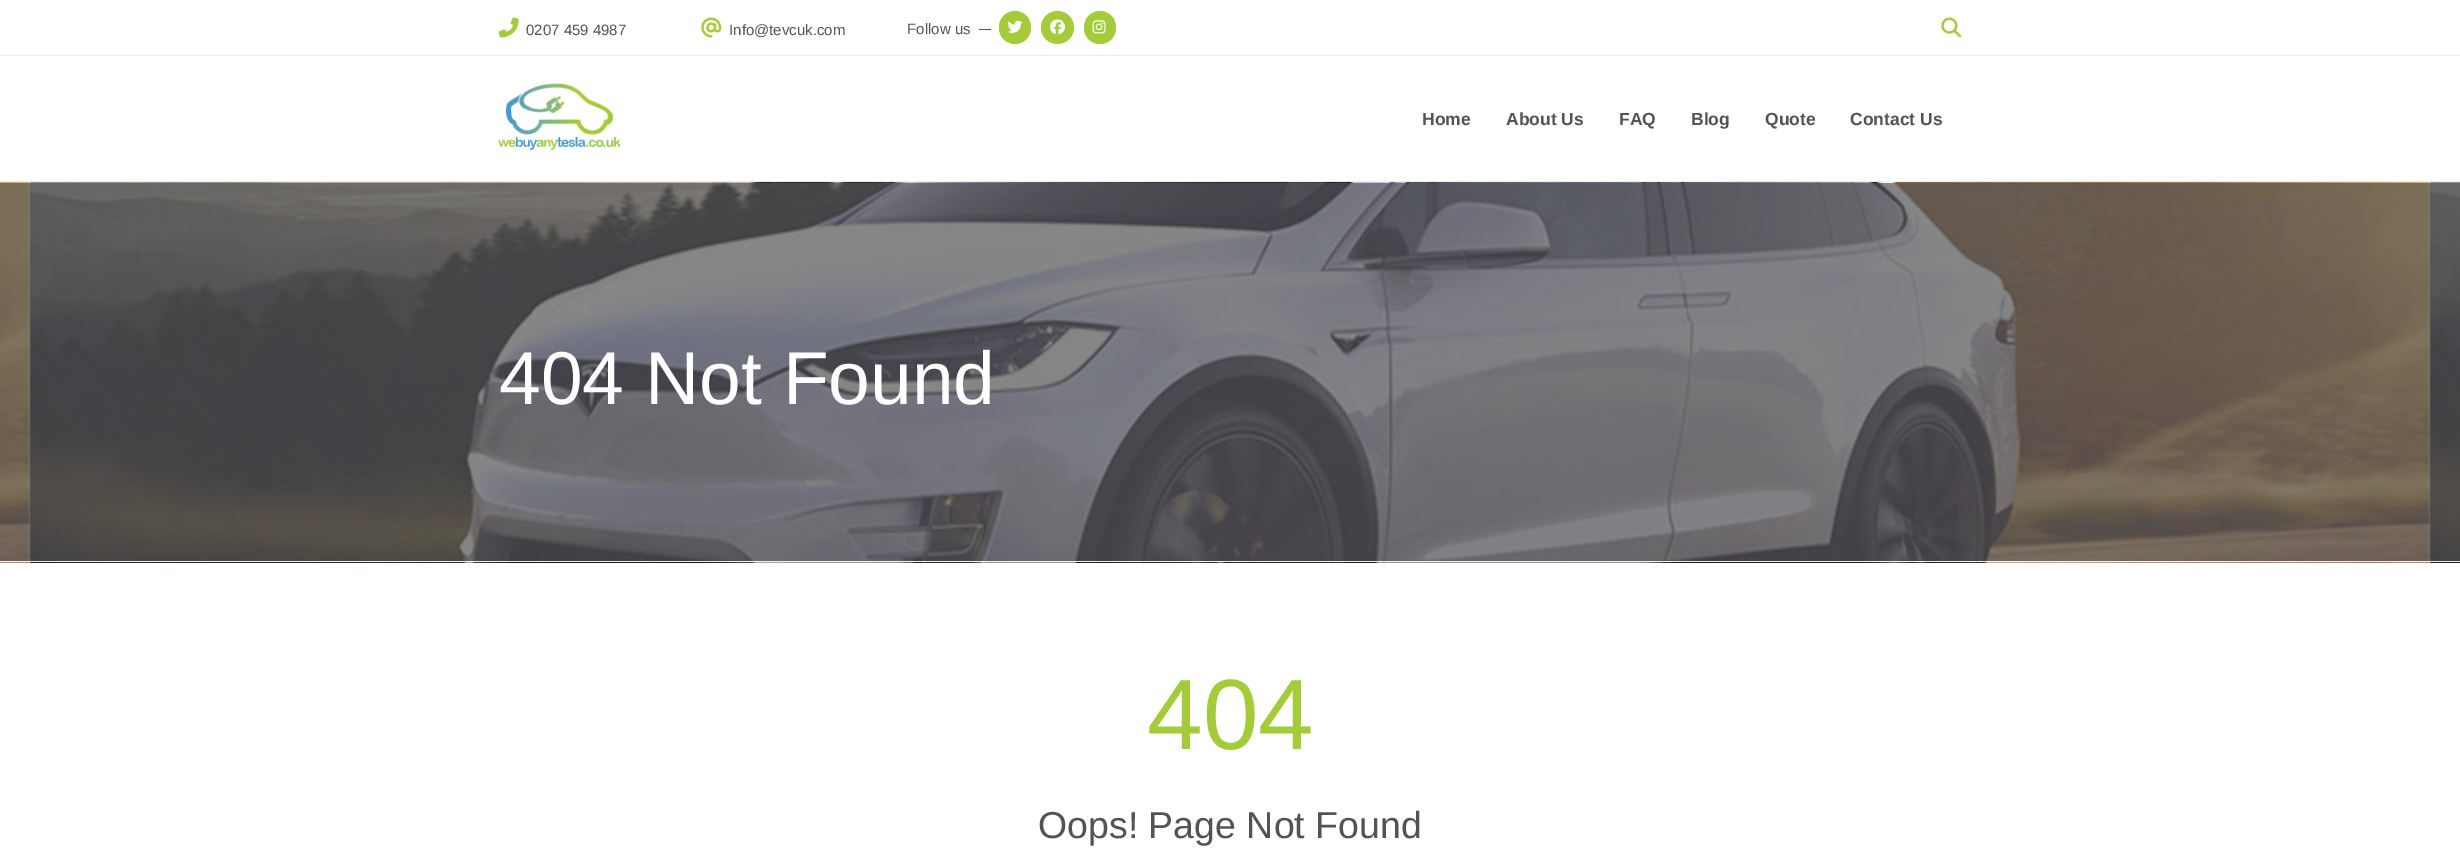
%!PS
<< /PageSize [2460 868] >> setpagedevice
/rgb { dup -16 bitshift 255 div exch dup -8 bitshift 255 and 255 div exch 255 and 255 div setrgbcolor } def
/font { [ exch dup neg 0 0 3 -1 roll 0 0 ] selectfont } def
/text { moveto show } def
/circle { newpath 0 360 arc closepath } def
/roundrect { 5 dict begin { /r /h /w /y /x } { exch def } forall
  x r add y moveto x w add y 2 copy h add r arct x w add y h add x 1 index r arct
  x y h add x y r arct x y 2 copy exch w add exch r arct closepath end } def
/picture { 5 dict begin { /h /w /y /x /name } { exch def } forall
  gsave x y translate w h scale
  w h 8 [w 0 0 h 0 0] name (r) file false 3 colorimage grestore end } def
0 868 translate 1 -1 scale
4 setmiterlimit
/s1 { /LiberationSans-Regular 15 font 16#535353 rgb } def
/s2 { /LiberationSans-Bold 17.5 font 16#535353 rgb } def
/s3 { /LiberationSans-Regular 75 font 16#FFFFFF rgb } def
/s4 { /LiberationSans-Regular 100 font 16#A4CC3A rgb } def
/s5 { /LiberationSans-Regular 37.5 font 16#535353 rgb } def
16#FFFFFF rgb
0 0 2460 868 rectfill
16#EAEFE8 rgb
0 55 2460 1 rectfill
(pic1.raw) 498 17 21 21 picture
s1
(0207 459 4987) 526 35 text
(pic2.raw) 701 17 21 21 picture
(Info@tevcuk.com) 729 35 text
(Follow us) 907 34 text
979 29 12 1 rectfill
16#A4CC3A rgb
999 11 32 33 16 roundrect fill
(pic3.raw) 1007 20 16 13 picture
1057.5 27.5 16.5 circle fill
(pic4.raw) 1050 19 15 16 picture
1084 11 32 33 16 roundrect fill
(pic5.raw) 1092 20 14 14 picture
(pic6.raw) 1941 17 21 21 picture
16#EAEFE8 rgb
0 181 2460 1 rectfill
(pic7.raw) 498 83 122 67 picture
s2
(Home) 1422 125 text
(About Us) 1506 125 text
(FAQ) 1619 125 text
(Blog) 1691 125 text
(Quote) 1765 125 text
(Contact Us) 1850 125 text
(pic8.raw) 0 182 2460 381 picture
16#EEEEEE rgb
0 561 2460 1 rectfill
s3
(404 Not Found) 499 404 text
s4
(404) 1147 749 text
s5
(Oops! Page Not Found) 1038 838 text
showpage
